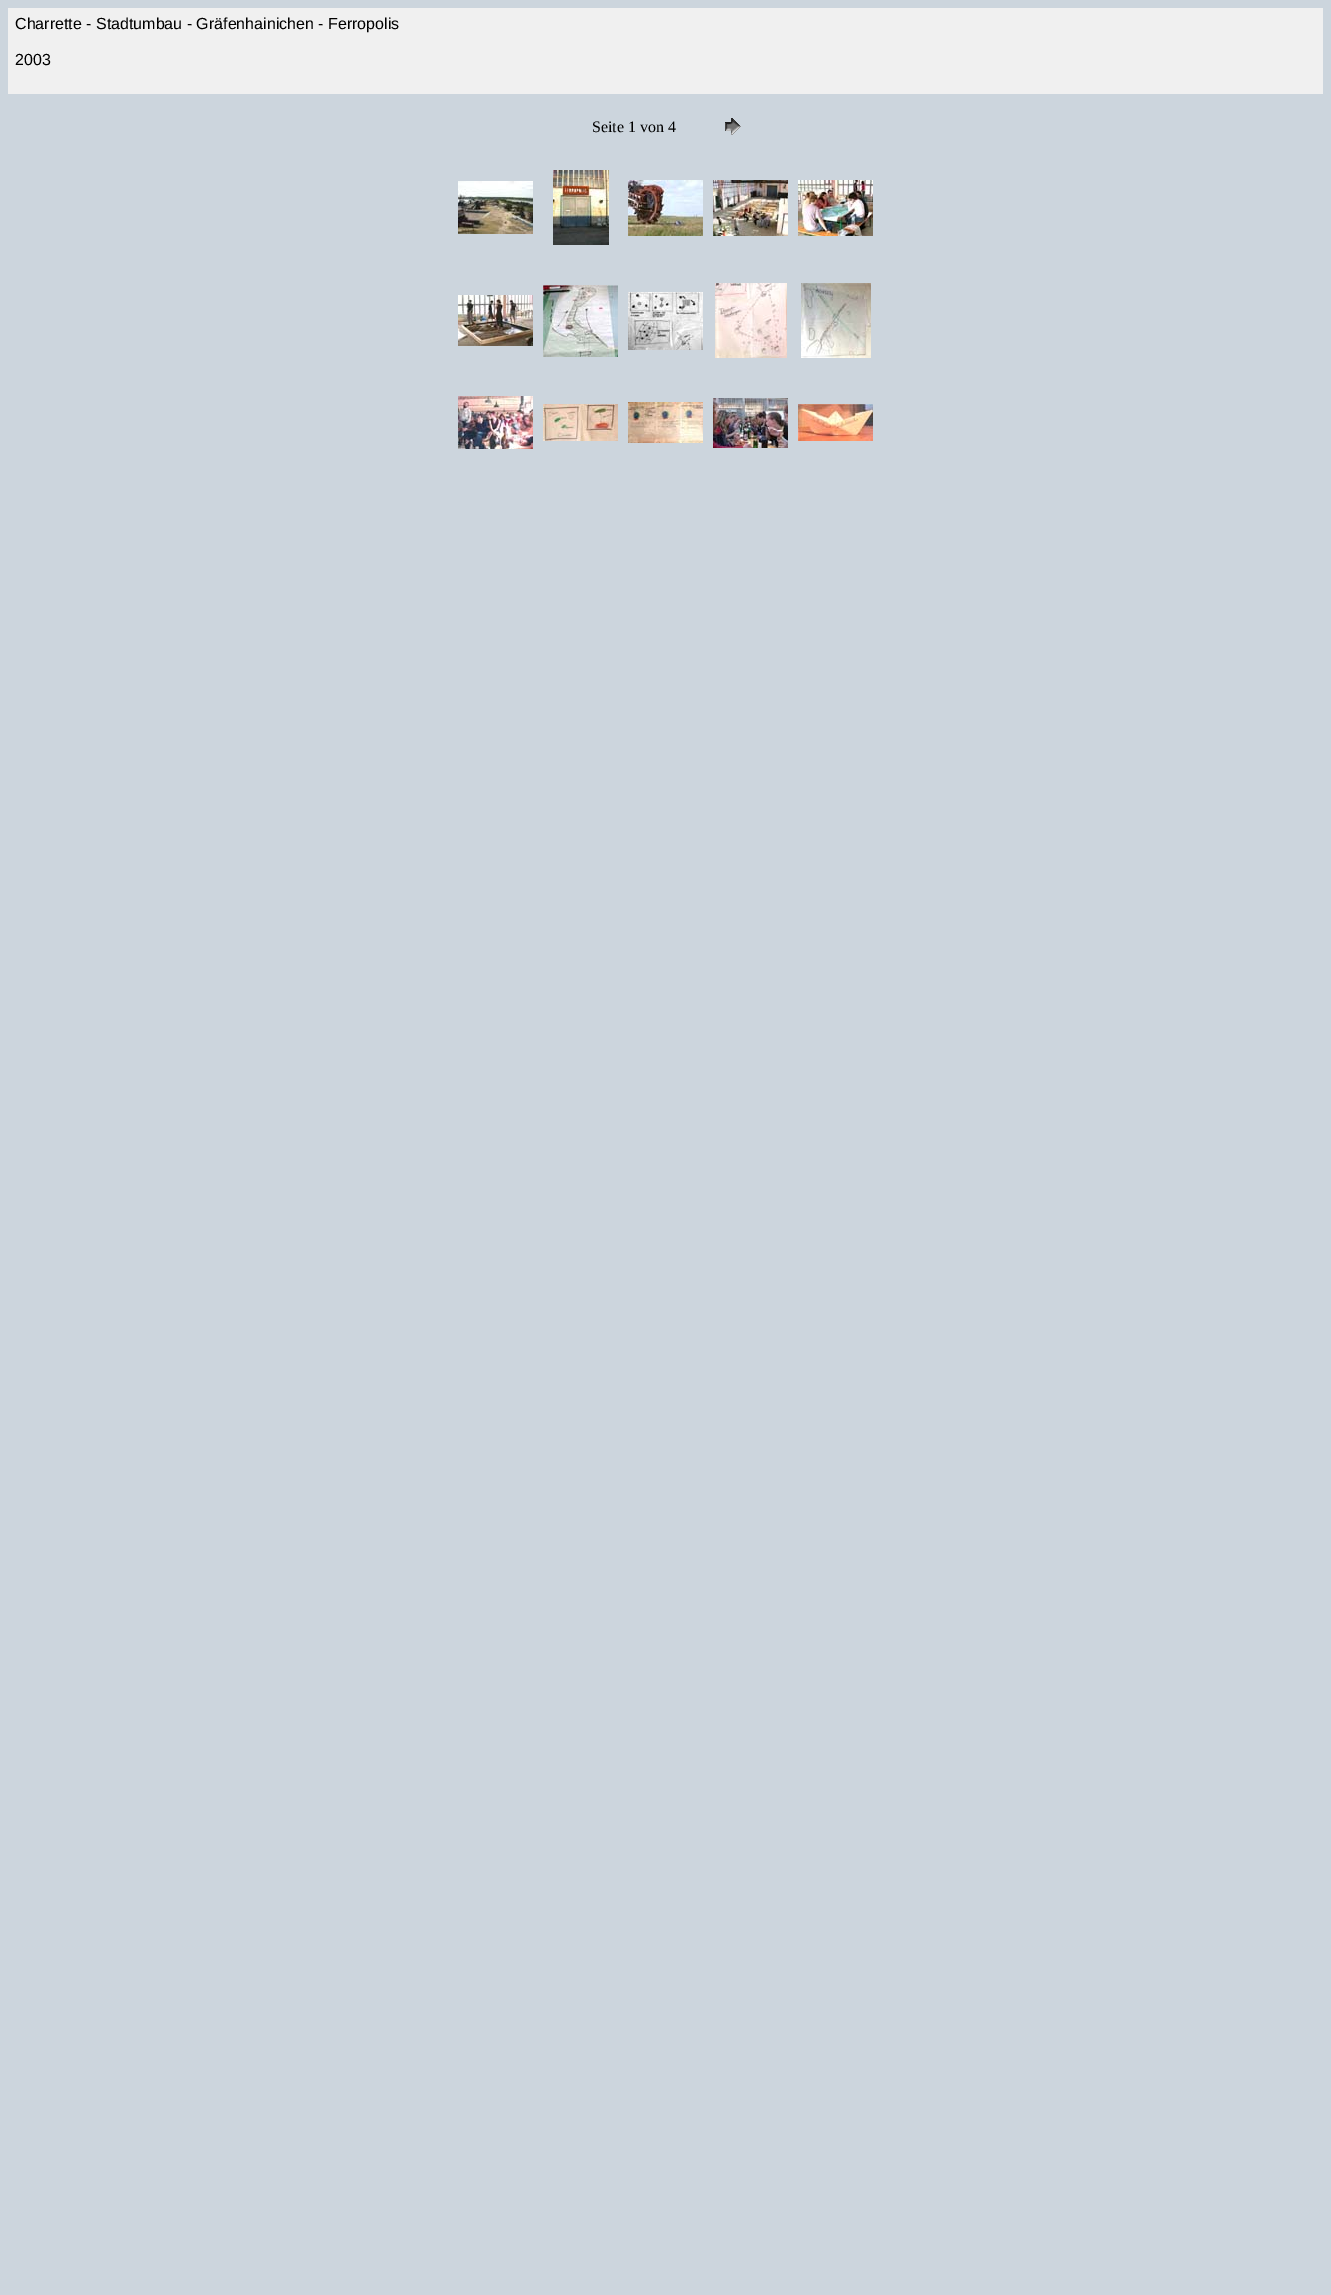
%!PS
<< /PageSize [1331 2295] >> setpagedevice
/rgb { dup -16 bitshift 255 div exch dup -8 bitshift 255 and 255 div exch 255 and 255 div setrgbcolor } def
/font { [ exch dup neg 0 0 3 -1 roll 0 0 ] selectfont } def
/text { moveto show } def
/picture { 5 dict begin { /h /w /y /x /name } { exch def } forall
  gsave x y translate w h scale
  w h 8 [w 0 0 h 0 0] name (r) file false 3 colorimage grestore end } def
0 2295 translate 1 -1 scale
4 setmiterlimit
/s1 { /LiberationSans-Regular 16 font 16#000000 rgb } def
/s2 { /LiberationSerif-Regular 16 font 16#000000 rgb } def
16#CCD5DD rgb
0 0 1331 2295 rectfill
16#F0F0F0 rgb
8 8 1315 86 rectfill
s1
(Charrette - Stadtumbau - Gräfenhainichen - Ferropolis) 15 29 text
(2003) 15 65 text
s2
(Seite 1 von 4) 592 132 text
(pic1.raw) 725 118 16 17 picture
(pic2.raw) 458 181 75 53 picture
(pic3.raw) 553 170 56 75 picture
(pic4.raw) 628 180 75 56 picture
(pic5.raw) 713 180 75 56 picture
(pic6.raw) 798 180 75 56 picture
(pic7.raw) 458 295 75 51 picture
(pic8.raw) 543 285 75 72 picture
(pic9.raw) 628 292 75 58 picture
(pic10.raw) 715 283 72 75 picture
(pic11.raw) 801 283 70 75 picture
(pic12.raw) 458 396 75 53 picture
(pic13.raw) 543 404 75 37 picture
(pic14.raw) 628 402 75 41 picture
(pic15.raw) 713 398 75 50 picture
(pic16.raw) 798 404 75 37 picture
showpage
